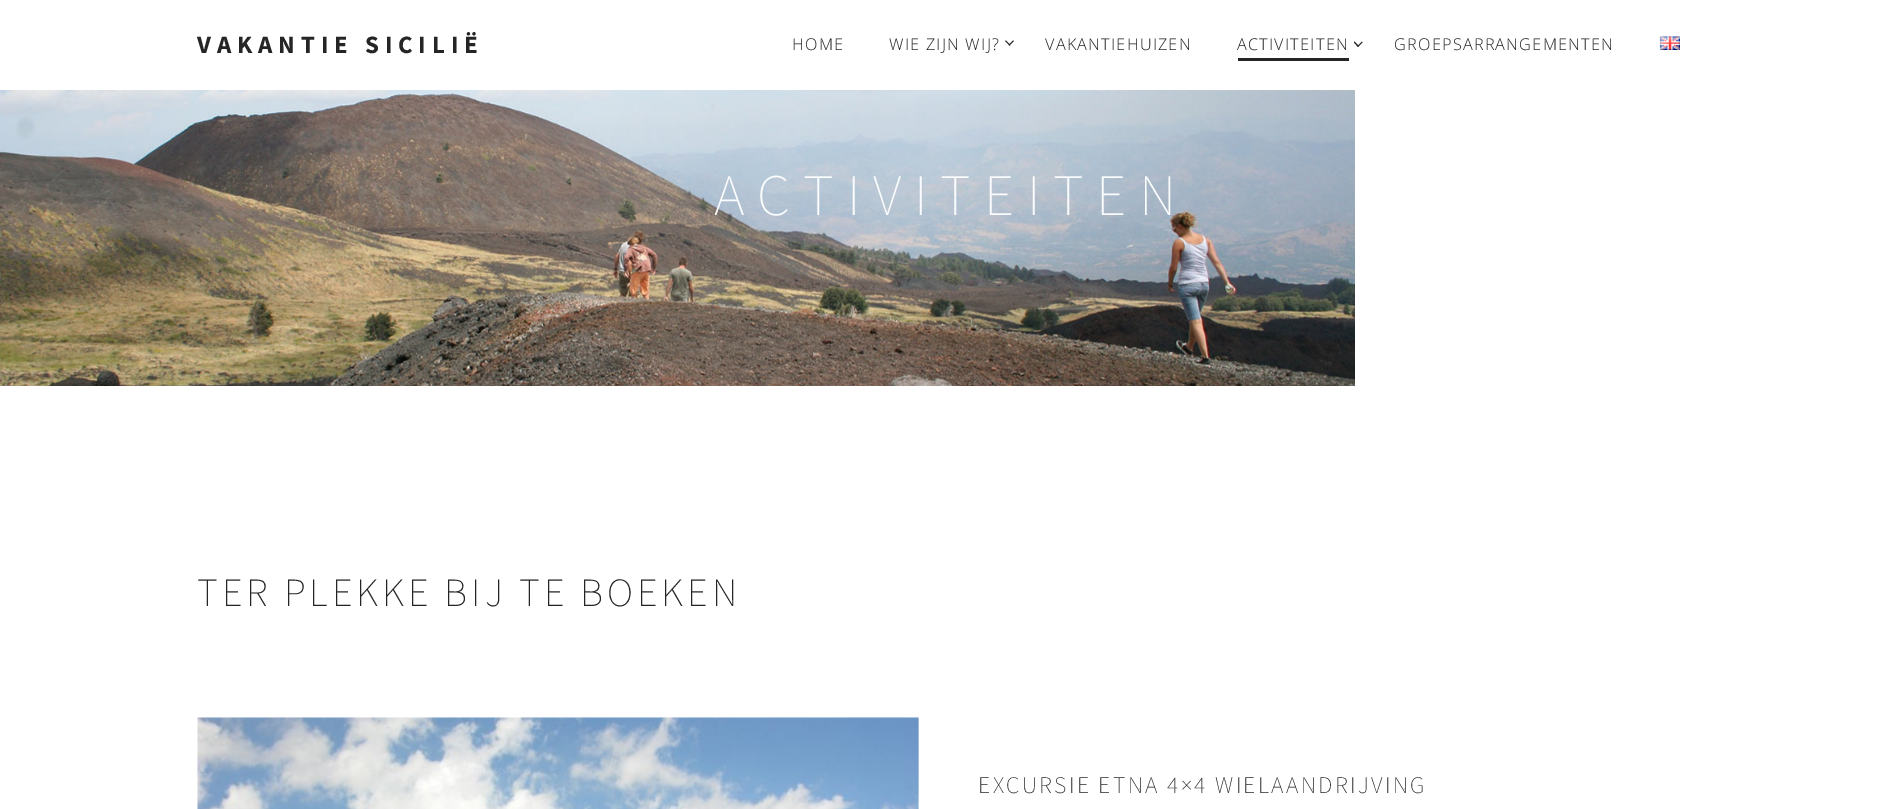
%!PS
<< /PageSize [1896 809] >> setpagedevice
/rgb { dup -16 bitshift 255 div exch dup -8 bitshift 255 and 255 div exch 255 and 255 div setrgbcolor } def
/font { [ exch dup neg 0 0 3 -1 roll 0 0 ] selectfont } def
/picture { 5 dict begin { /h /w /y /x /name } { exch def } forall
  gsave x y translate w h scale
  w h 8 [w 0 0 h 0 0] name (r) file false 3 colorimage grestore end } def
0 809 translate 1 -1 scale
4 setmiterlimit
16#FFFFFF rgb
0 0 1896 809 rectfill
/SourceSansPro-Bold 25 font
16#252525 rgb
197 53 moveto 5.9 0 (VAKANTIE SICILIË) ashow
/OpenSans-Light 16.25 font
792 50 moveto 1.25 0 (HOME) ashow
889 50 moveto 1.25 0 (WIE ZIJN WIJ?) ashow
1013 40.5 moveto 1014 41 lineto 1009.5 45.5 lineto 1008.5 45 lineto closepath fill
1006 40.5 moveto 1010.5 45 lineto 1009.5 45.5 lineto 1005 41 lineto closepath fill
1045 50 moveto 1.25 0 (VAKANTIEHUIZEN) ashow
1237 50 moveto 1.25 0 (ACTIVITEITEN) ashow
1238 58 111 3 rectfill
1362 41.5 moveto 1362.5 42.5 lineto 1358 47 lineto 1357.5 46 lineto closepath fill
1354.5 41.5 moveto 1359 46 lineto 1358 47 lineto 1354 42.5 lineto closepath fill
1394 50 moveto 1.25 0 (GROEPSARRANGEMENTEN) ashow
(pic1.raw) 1659 36 21 14 picture
(pic2.raw) 0 90 1355 296 picture
/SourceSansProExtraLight-ExtraLight 58.75 font
16#FBFCFD rgb
714 215 moveto 12.8 0 (ACTIVITEITEN) ashow
/SourceSansProExtraLight-ExtraLight 40 font
16#252525 rgb
197 606 moveto 4 0 (TER PLEKKE BIJ TE BOEKEN) ashow
(pic3.raw) 197 717 722 92 picture
/SourceSansProExtraLight-ExtraLight 23.75 font
978 793 moveto 2.4 0 (EXCURSIE ETNA 4×4 WIELAANDRIJVING) ashow
showpage
